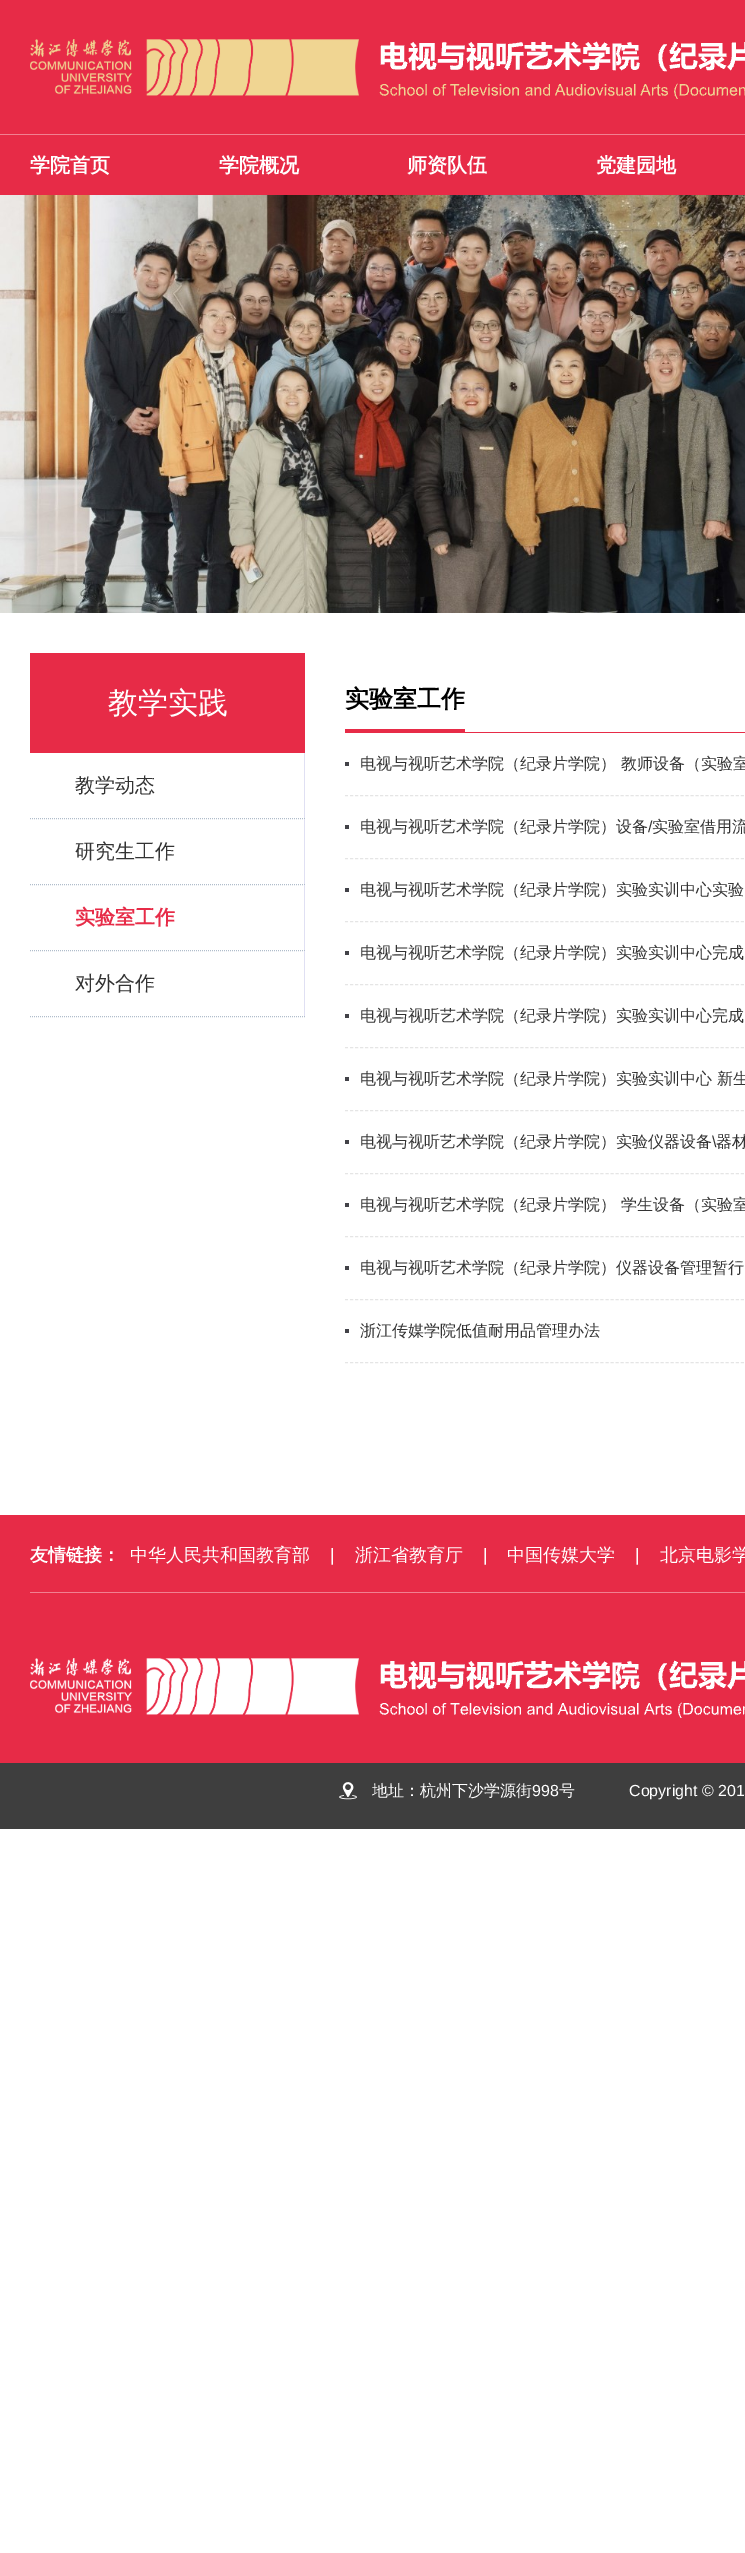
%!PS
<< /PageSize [745 2553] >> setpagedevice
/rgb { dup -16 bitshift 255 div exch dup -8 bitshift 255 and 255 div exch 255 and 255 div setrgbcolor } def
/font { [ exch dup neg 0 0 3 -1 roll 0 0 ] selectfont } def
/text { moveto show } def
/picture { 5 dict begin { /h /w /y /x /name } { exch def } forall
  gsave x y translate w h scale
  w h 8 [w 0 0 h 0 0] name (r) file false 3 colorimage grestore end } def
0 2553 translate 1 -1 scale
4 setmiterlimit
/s1 { /WenQuanYiZenHei-Bold 20 font 16#FFFFFF rgb } def
/s2 { /WenQuanYiZenHei-Medium 30 font 16#FFFFFF rgb } def
/s3 { /WenQuanYiZenHei-Medium 20 font 16#333333 rgb } def
/s4 { /WenQuanYiZenHei-Bold 20 font 16#E72B47 rgb } def
/s5 { /WenQuanYiZenHei-Bold 24 font 16#000000 rgb } def
/s6 { /WenQuanYiZenHei-Medium 16 font 16#333333 rgb } def
/s7 { /LiberationSans-Regular 16 font 16#333333 rgb } def
/s8 { /WenQuanYiZenHei-Bold 18 font 16#FFFFFF rgb } def
/s9 { /WenQuanYiZenHei-Medium 18 font 16#FFFFFF rgb } def
/s10 { /LiberationSans-Regular 18 font 16#FFFFFF rgb } def
/s11 { /WenQuanYiZenHei-Medium 16 font 16#FFFFFF rgb } def
/s12 { /LiberationSans-Regular 16 font 16#FFFFFF rgb } def
16#FFFFFF rgb
0 0 745 2553 rectfill
16#E72B47 rgb
0 0 745 195 rectfill
16#F18091 rgb
0 134 745 1 rectfill
(pic1.raw) 30 39 715 60 picture
s1
(学院首页) 30 172 text
(学院概况) 219 172 text
(师资队伍) 407 172 text
(党建园地) 596 172 text
(pic2.raw) 0 195 745 418 picture
16#E72B47 rgb
30 653 275 100 rectfill
s2
(教学实践) 108 713 text
16#E0E0F3 rgb
305 753 moveto 305 819 lineto 304 818 lineto 304 753 lineto closepath fill
16#B0BDCB rgb
[1 1] 0 setdash
30 818.5 moveto 305 818.5 lineto stroke
s3
(教学动态) 75 792 text
16#E0E0F3 rgb
305 819 moveto 305 885 lineto 304 884 lineto 304 819 lineto closepath fill
16#B0BDCB rgb
30 884.5 moveto 305 884.5 lineto stroke
s3
(研究生工作) 75 858 text
16#E0E0F3 rgb
305 885 moveto 305 951 lineto 304 950 lineto 304 885 lineto closepath fill
16#B0BDCB rgb
30 950.5 moveto 305 950.5 lineto stroke
s4
(实验室工作) 75 924 text
16#E0E0F3 rgb
305 951 moveto 305 1017 lineto 304 1016 lineto 304 951 lineto closepath fill
16#B0BDCB rgb
30 1016.5 moveto 305 1016.5 lineto stroke
s3
(对外合作) 75 990 text
16#E72B47 rgb
345 732 400 1 rectfill
s5
(实验室工作) 345 707 text
16#E72B47 rgb
345 729 120 3 rectfill
16#424248 rgb
345 762 4 4 rectfill
16#E5E5E5 rgb
[3 2.01] 0 setdash
345 795.5 moveto 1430 795.5 lineto stroke
s6
(电视与视听艺术学院（纪录片学院） 教师设备（实验室) 360 769 text
16#424248 rgb
345 825 4 4 rectfill
16#E5E5E5 rgb
345 858.5 moveto 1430 858.5 lineto stroke
s6
(电视与视听艺术学院（纪录片学院）设备) 360 832 text
s7
(/) 648 832 text
s6
(实验室借用流) 652 832 text
16#424248 rgb
345 888 4 4 rectfill
16#E5E5E5 rgb
345 921.5 moveto 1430 921.5 lineto stroke
s6
(电视与视听艺术学院（纪录片学院）实验实训中心实验) 360 895 text
16#424248 rgb
345 951 4 4 rectfill
16#E5E5E5 rgb
345 984.5 moveto 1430 984.5 lineto stroke
s6
(电视与视听艺术学院（纪录片学院）实验实训中心完成) 360 958 text
16#424248 rgb
345 1014 4 4 rectfill
16#E5E5E5 rgb
345 1047.5 moveto 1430 1047.5 lineto stroke
s6
(电视与视听艺术学院（纪录片学院）实验实训中心完成) 360 1021 text
16#424248 rgb
345 1077 4 4 rectfill
16#E5E5E5 rgb
345 1110.5 moveto 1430 1110.5 lineto stroke
s6
(电视与视听艺术学院（纪录片学院）实验实训中心 新生) 360 1084 text
16#424248 rgb
345 1140 4 4 rectfill
16#E5E5E5 rgb
345 1173.5 moveto 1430 1173.5 lineto stroke
s6
(电视与视听艺术学院（纪录片学院）实验仪器设备) 360 1147 text
s7
(\\) 712 1147 text
s6
(器材) 716 1147 text
16#424248 rgb
345 1203 4 4 rectfill
16#E5E5E5 rgb
345 1236.5 moveto 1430 1236.5 lineto stroke
s6
(电视与视听艺术学院（纪录片学院） 学生设备（实验室) 360 1210 text
16#424248 rgb
345 1266 4 4 rectfill
16#E5E5E5 rgb
345 1299.5 moveto 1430 1299.5 lineto stroke
s6
(电视与视听艺术学院（纪录片学院）仪器设备管理暂行) 360 1273 text
16#424248 rgb
345 1329 4 4 rectfill
16#E5E5E5 rgb
345 1362.5 moveto 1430 1362.5 lineto stroke
s6
(浙江传媒学院低值耐用品管理办法) 360 1336 text
16#E72B47 rgb
0 1515 745 248 rectfill
16#F18091 rgb
30 1592 715 1 rectfill
s8
(友情链接：) 30 1561 text
s9
(中华人民共和国教育部) 130 1561 text
s10
(|) 330 1561 text
s9
(浙江省教育厅) 355 1561 text
s10
(|) 483 1561 text
s9
(中国传媒大学) 507 1561 text
s10
(|) 635 1561 text
s9
(北京电影学) 660 1561 text
(pic3.raw) 30 1658 715 60 picture
16#3E3E3E rgb
0 1763 745 66 rectfill
(pic4.raw) 339 1782 18 18 picture
s11
(地址：杭州下沙学源街) 372 1796 text
s12
(998) 532 1796 text
s11
(号) 559 1796 text
s12
(Copyright © 201) 629 1796 text
showpage
